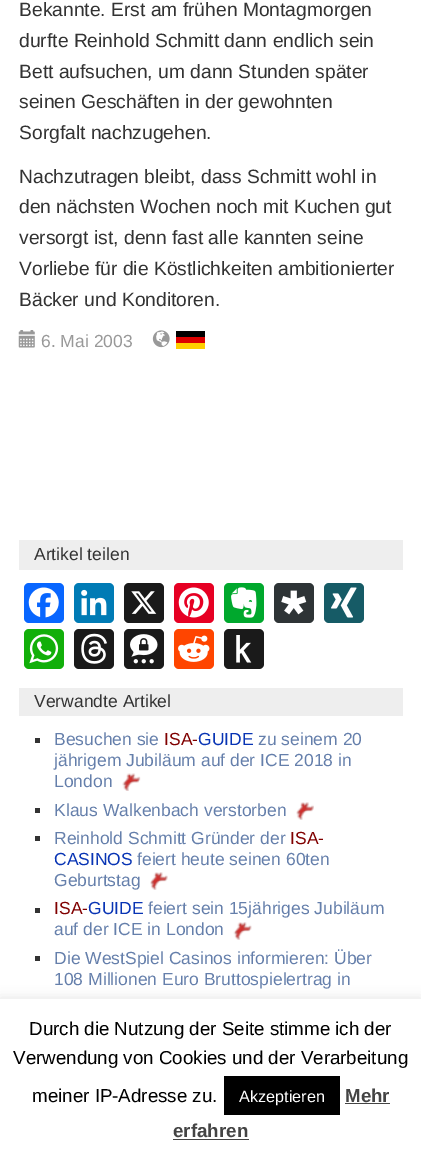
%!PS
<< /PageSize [421 1158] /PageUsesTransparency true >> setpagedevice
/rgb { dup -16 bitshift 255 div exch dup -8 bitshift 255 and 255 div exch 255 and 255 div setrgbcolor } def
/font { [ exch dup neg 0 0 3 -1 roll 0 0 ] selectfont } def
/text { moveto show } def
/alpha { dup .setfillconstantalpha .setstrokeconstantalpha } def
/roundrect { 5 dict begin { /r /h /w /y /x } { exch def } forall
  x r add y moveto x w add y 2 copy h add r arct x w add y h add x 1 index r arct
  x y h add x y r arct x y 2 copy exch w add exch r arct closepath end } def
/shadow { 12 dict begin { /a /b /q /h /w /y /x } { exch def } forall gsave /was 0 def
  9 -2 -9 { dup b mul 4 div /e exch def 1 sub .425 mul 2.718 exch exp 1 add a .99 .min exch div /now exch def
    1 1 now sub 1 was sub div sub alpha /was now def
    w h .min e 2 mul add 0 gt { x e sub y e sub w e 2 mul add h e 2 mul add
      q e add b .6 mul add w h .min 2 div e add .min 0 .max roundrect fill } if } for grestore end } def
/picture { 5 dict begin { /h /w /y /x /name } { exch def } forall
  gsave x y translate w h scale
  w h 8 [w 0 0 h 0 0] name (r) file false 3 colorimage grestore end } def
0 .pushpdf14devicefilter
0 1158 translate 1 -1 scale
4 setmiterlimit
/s1 { /LiberationSans-Regular 19.25 font 16#333333 rgb } def
/s2 { /LiberationSans-Regular 17.5 font 16#999999 rgb } def
/s3 { /LiberationSans-Regular 17.5 font 16#333333 rgb } def
/s4 { /LiberationSans-Regular 17.5 font 16#657FAB rgb } def
/s5 { /LiberationSans-Regular 17.5 font 16#800000 rgb } def
/s6 { /LiberationSans-Regular 17.5 font 16#0834B4 rgb } def
/s7 { /LiberationSans-Regular 18.75 font 16#000000 rgb } def
/s8 { /LiberationSans-Regular 16.25 font 16#FFFFFF rgb } def
/s9 { /LiberationSans-Bold 18.75 font 16#444444 rgb } def
16#FFFFFF rgb
0 0 421 1158 rectfill
s1
(Bekannte. Erst am frühen Montagmorgen) 19 16 text
(durfte Reinhold Schmitt dann endlich sein) 19 47 text
(Bett aufsuchen, um dann Stunden später) 19 78 text
(seinen Geschäften in der gewohnten) 19 108 text
(Sorgfalt nachzugehen.) 19 139 text
(Nachzutragen bleibt, dass Schmitt wohl in) 19 183 text
(den nächsten Wochen noch mit Kuchen gut) 19 213 text
(versorgt ist, denn fast alle kannten seine) 19 244 text
(Vorliebe für die Köstlichkeiten ambitionierter) 19 275 text
(Bäcker und Konditoren.) 19 306 text
(pic1.raw) 18 330 17 18 picture
s2
(6. Mai 2003) 41 347 text
(pic2.raw) 152 330 18 18 picture
16#000000 rgb
176 331 29 6 rectfill
16#DD0000 rgb
176 337 29 6 rectfill
16#FFCE00 rgb
176 343 29 6 rectfill
16#EEEEEE rgb
19 540 384 30 rectfill
s3
(Artikel teilen) 34 560 text
16#0866FF rgb
24 583 40 40 5 roundrect fill
(pic3.raw) 28 587 31 31 picture
16#007BB5 rgb
74 583 40 40 5 roundrect fill
(pic4.raw) 81 589 26 27 picture
16#1A1A1A rgb
124 583 40 40 5 roundrect fill
(pic5.raw) 131 591 26 23 picture
16#E60023 rgb
174 583 40 40 5 roundrect fill
(pic6.raw) 178 587 31 31 picture
16#00A82D rgb
224 583 40 40 5 roundrect fill
(pic7.raw) 231 587 26 31 picture
16#2E3436 rgb
274 583 40 40 5 roundrect fill
(pic8.raw) 281 590 26 25 picture
16#165B66 rgb
324 583 40 40 5 roundrect fill
(pic9.raw) 331 587 26 31 picture
16#12AF0A rgb
24 629 40 40 5 roundrect fill
(pic10.raw) 29 634 30 30 picture
16#1A1A1A rgb
74 629 40 40 5 roundrect fill
(pic11.raw) 81 633 26 31 picture
124 629 40 40 5 roundrect fill
(pic12.raw) 130 634 28 30 picture
16#FF4500 rgb
174 629 40 40 5 roundrect fill
(pic13.raw) 178 635 32 27 picture
16#1A1A1A rgb
224 629 40 40 5 roundrect fill
(pic14.raw) 236 635 16 28 picture
16#EEEEEE rgb
19 688 384 28 rectfill
s3
(Verwandte Artikel) 34 707 text
35 738 5 5 rectfill
s4
(Besuchen sie) 54 745 text
s5
(ISA-) 164 745 text
s6
(GUIDE) 198 745 text
s4
(zu seinem 20) 258 745 text
(jährigem Jubiläum auf der ICE 2018 in) 54 766 text
(London) 54 787 text
(pic15.raw) 122 773 19 18 picture
16#333333 rgb
35 808 5 5 rectfill
s4
(Klaus Walkenbach verstorben) 54 816 text
(pic16.raw) 296 802 18 18 picture
16#333333 rgb
35 836 5 5 rectfill
s4
(Reinhold Schmitt Gründer der) 54 844 text
s5
(ISA-) 290 844 text
s6
(CASINOS) 54 865 text
s4
(feiert heute seinen 60ten) 137 865 text
(Geburtstag) 54 886 text
(pic17.raw) 150 872 18 18 picture
16#333333 rgb
35 908 5 5 rectfill
s5
(ISA-) 54 914 text
s6
(GUIDE) 88 914 text
s4
(feiert sein 15jähriges Jubiläum) 148 914 text
(auf der ICE in London) 54 935 text
(pic18.raw) 233 922 19 18 picture
16#333333 rgb
35 956 5 5 rectfill
s4
(Die WestSpiel Casinos informieren: Über) 54 964 text
(108 Millionen Euro Bruttospielertrag in) 54 985 text
16#ACABAB rgb
0 998 421 160 0 6 0.3 shadow
16#FFFFFF rgb
0 999 421 159 rectfill
s7
(Durch die Nutzung der Seite stimme ich der) 29 1035 text
(Verwendung von Cookies und der Verarbeitung) 13 1064 text
(meiner IP-Adresse zu.) 32 1102 text
224 1076 116 39 rectfill
s8
(Akzeptieren) 239 1102 text
s9
(Mehr) 345 1102 text
345 1103 45 1 rectfill
(erfahren) 173 1137 text
173 1139 76 1 rectfill
.poppdf14devicefilter showpage
